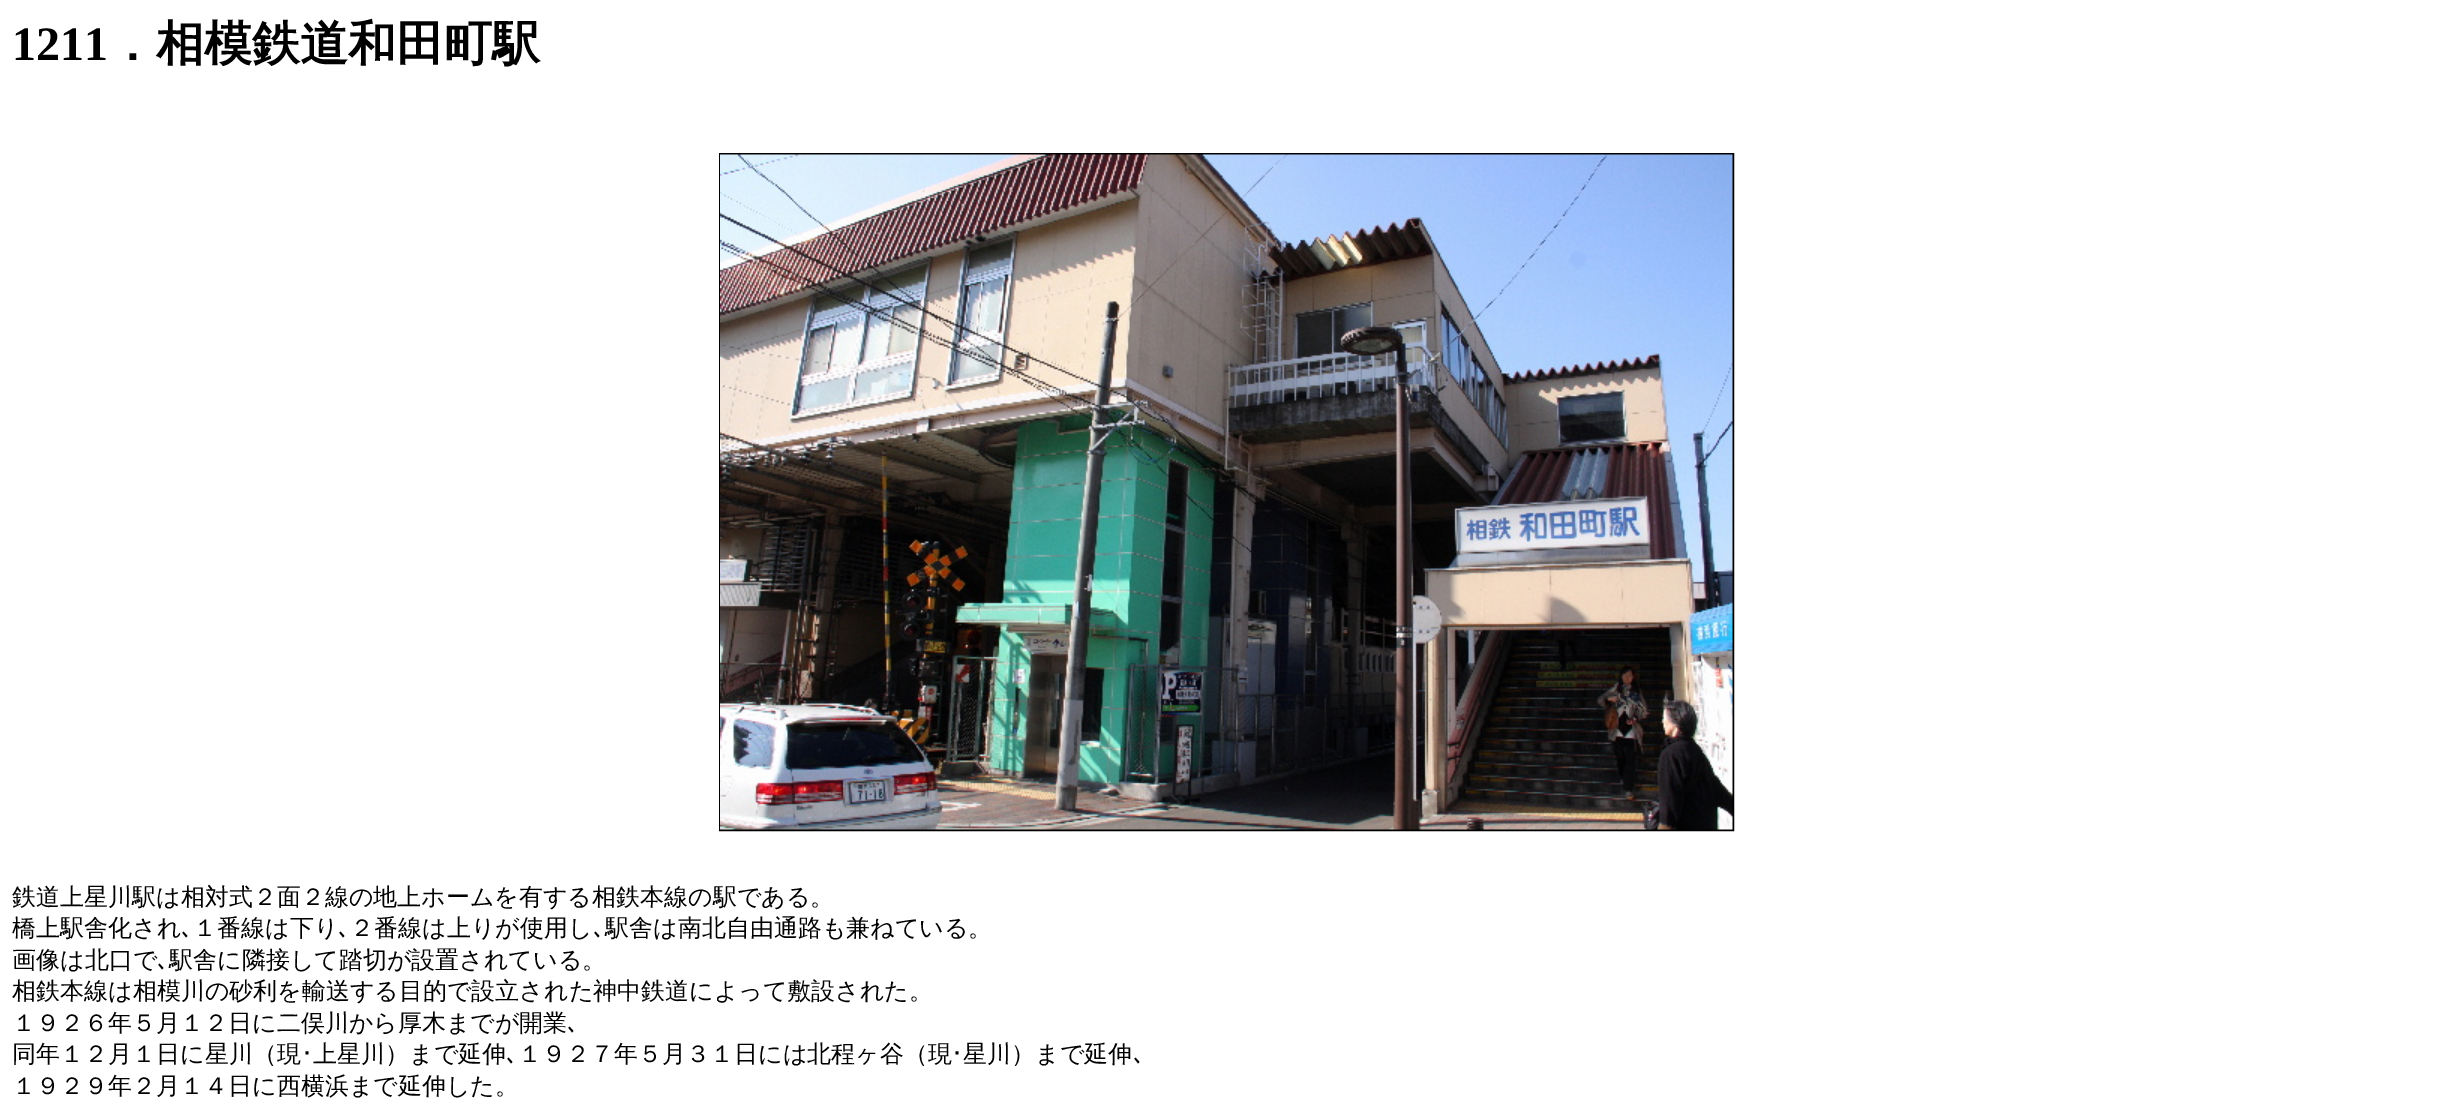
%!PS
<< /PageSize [2451 1102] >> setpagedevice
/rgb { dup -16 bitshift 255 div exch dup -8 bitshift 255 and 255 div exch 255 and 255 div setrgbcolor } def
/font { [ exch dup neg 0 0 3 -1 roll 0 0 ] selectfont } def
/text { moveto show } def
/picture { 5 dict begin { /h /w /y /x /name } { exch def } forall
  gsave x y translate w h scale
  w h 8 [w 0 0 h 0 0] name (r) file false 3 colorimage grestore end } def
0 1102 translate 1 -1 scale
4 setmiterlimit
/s1 { /LiberationSerif-Bold 48 font 16#000000 rgb } def
/s2 { /WenQuanYiZenHei-Bold 48 font 16#000000 rgb } def
/s3 { /WenQuanYiZenHei-Medium 24 font 16#000000 rgb } def
/s4 { /IPAGothic-Regular 24 font 16#000000 rgb } def
16#FFFFFF rgb
0 0 2451 1102 rectfill
s1
(1211) 12 60 text
s2
(．相模鉄道和田町駅) 108 60 text
2 setlinewidth
720 154 1013 676 rectstroke
(pic1.raw) 720 154 1013 676 picture
s3
(鉄道上星川駅は相対式２面２線の地上ホームを有する相鉄本線の駅である。) 12 905 text
(橋上駅舎化され) 12 936 text
s4
(､) 181 936 text
s3
(１番線は下り) 193 936 text
s4
(､) 338 936 text
s3
(２番線は上りが使用し) 350 936 text
s4
(､) 593 936 text
s3
(駅舎は南北自由通路も兼ねている。) 605 936 text
(画像は北口で) 12 968 text
s4
(､) 157 968 text
s3
(駅舎に隣接して踏切が設置されている。) 169 968 text
(相鉄本線は相模川の砂利を輸送する目的で設立された神中鉄道によって敷設された。) 12 999 text
(１９２６年５月１２日に二俣川から厚木までが開業) 12 1031 text
s4
(､) 567 1031 text
s3
(同年１２月１日に星川（現) 12 1062 text
s4
(･) 301 1062 text
s3
(上星川）まで延伸) 313 1062 text
(１９２７年５月３１日には北程ヶ谷（現) 518 1062 text
s4
(･) 951 1062 text
s3
(星川）まで延伸) 963 1062 text
s4
(､) 506 1062 text
(､) 1133 1062 text
s3
(１９２９年２月１４日に西横浜まで延伸した。) 12 1094 text
showpage
